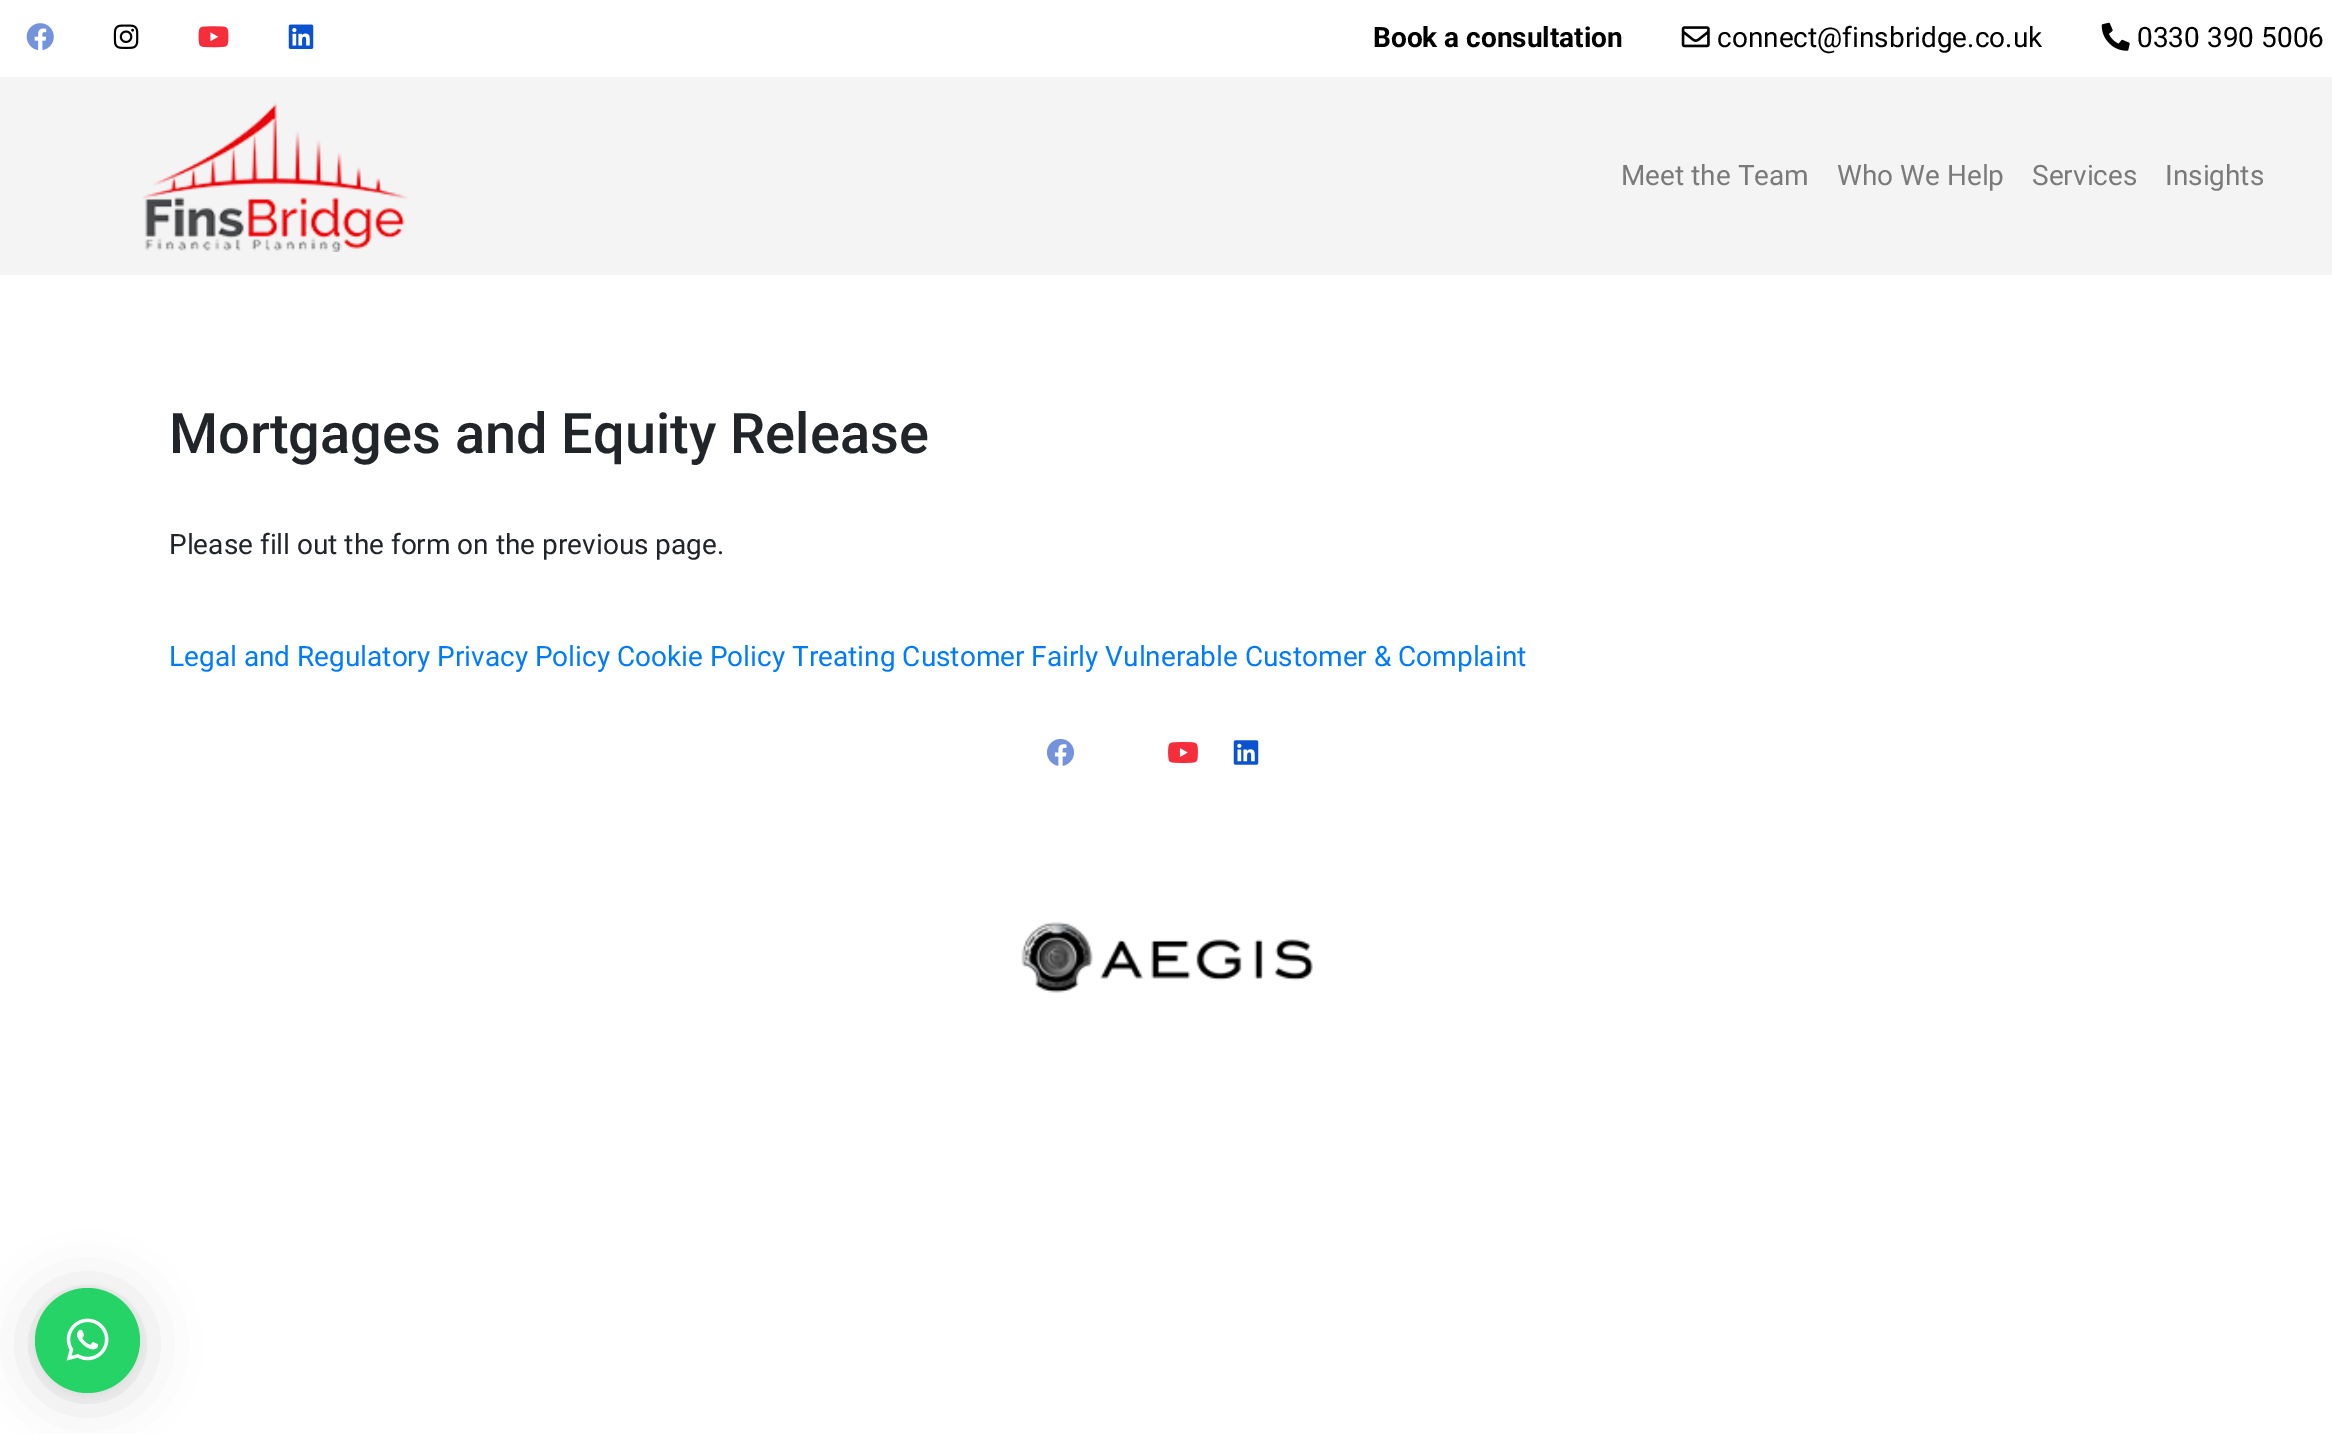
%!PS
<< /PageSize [2332 1434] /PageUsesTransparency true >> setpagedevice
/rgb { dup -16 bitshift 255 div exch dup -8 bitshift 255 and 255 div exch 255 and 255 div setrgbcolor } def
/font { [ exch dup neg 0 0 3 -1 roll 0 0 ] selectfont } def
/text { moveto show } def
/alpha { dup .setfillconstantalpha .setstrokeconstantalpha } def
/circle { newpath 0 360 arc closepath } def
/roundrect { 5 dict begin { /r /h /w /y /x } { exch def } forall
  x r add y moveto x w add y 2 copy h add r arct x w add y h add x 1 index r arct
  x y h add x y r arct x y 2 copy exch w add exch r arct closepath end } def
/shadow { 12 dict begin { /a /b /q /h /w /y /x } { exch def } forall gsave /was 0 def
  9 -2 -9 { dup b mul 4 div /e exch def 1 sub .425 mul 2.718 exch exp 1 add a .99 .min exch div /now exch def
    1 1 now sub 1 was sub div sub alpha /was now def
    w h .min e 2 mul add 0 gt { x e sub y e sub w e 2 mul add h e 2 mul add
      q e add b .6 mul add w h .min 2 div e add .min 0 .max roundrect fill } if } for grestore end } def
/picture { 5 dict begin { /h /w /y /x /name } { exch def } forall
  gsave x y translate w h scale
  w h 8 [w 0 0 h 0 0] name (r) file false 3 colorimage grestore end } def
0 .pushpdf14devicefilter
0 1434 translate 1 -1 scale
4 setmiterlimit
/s1 { /Roboto-Bold 28 font 16#000000 rgb } def
/s2 { /Roboto-Regular 28 font 16#000000 rgb } def
/s3 { /Roboto-Regular 28 font 16#7A7A7A rgb } def
/s4 { /Roboto-Medium 56 font 16#212529 rgb } def
/s5 { /Roboto-Regular 28 font 16#212529 rgb } def
/s6 { /Roboto-Regular 28 font 16#007BFF rgb } def
16#FFFFFF rgb
0 0 2332 1434 rectfill
(pic1.raw) 26 23 28 28 picture
(pic2.raw) 113 24 26 25 picture
(pic3.raw) 198 26 31 22 picture
(pic4.raw) 288 24 26 25 picture
s1
(Book a consultation) 1373 47 text
(pic5.raw) 1681 26 29 22 picture
s2
(connect@finsbridge.co.uk) 1717 47 text
(pic6.raw) 2101 22 29 29 picture
(0330 390 5006) 2137 47 text
16#F4F4F4 rgb
0 77 2332 198 rectfill
(pic7.raw) 142 101 266 151 picture
s3
(Meet the Team) 1621 185 text
(Who We Help) 1837 185 text
(Services) 2032 185 text
(Insights) 2165 185 text
s4
(Mortgages and Equity Release) 169 453 text
s5
(Please fill out the form on the previous page.) 169 554 text
s6
(Legal and Regulatory Privacy Policy Cookie Policy Treating Customer Fairly Vulnerable Customer & Complaint) 169 666 text
(pic8.raw) 1046 738 29 28 picture
(pic9.raw) 1168 742 30 21 picture
(pic10.raw) 1233 740 26 25 picture
(pic11.raw) 1021 922 292 71 picture
16#000000 rgb
35 1292 105 105 52.5 28 0.16 shadow
35 1290 105 105 52.5 5 0.06 shadow
16#25D366 rgb
87.5 1340.5 52.5 circle fill
(pic12.raw) 66 1318 43 43 picture
.poppdf14devicefilter showpage
